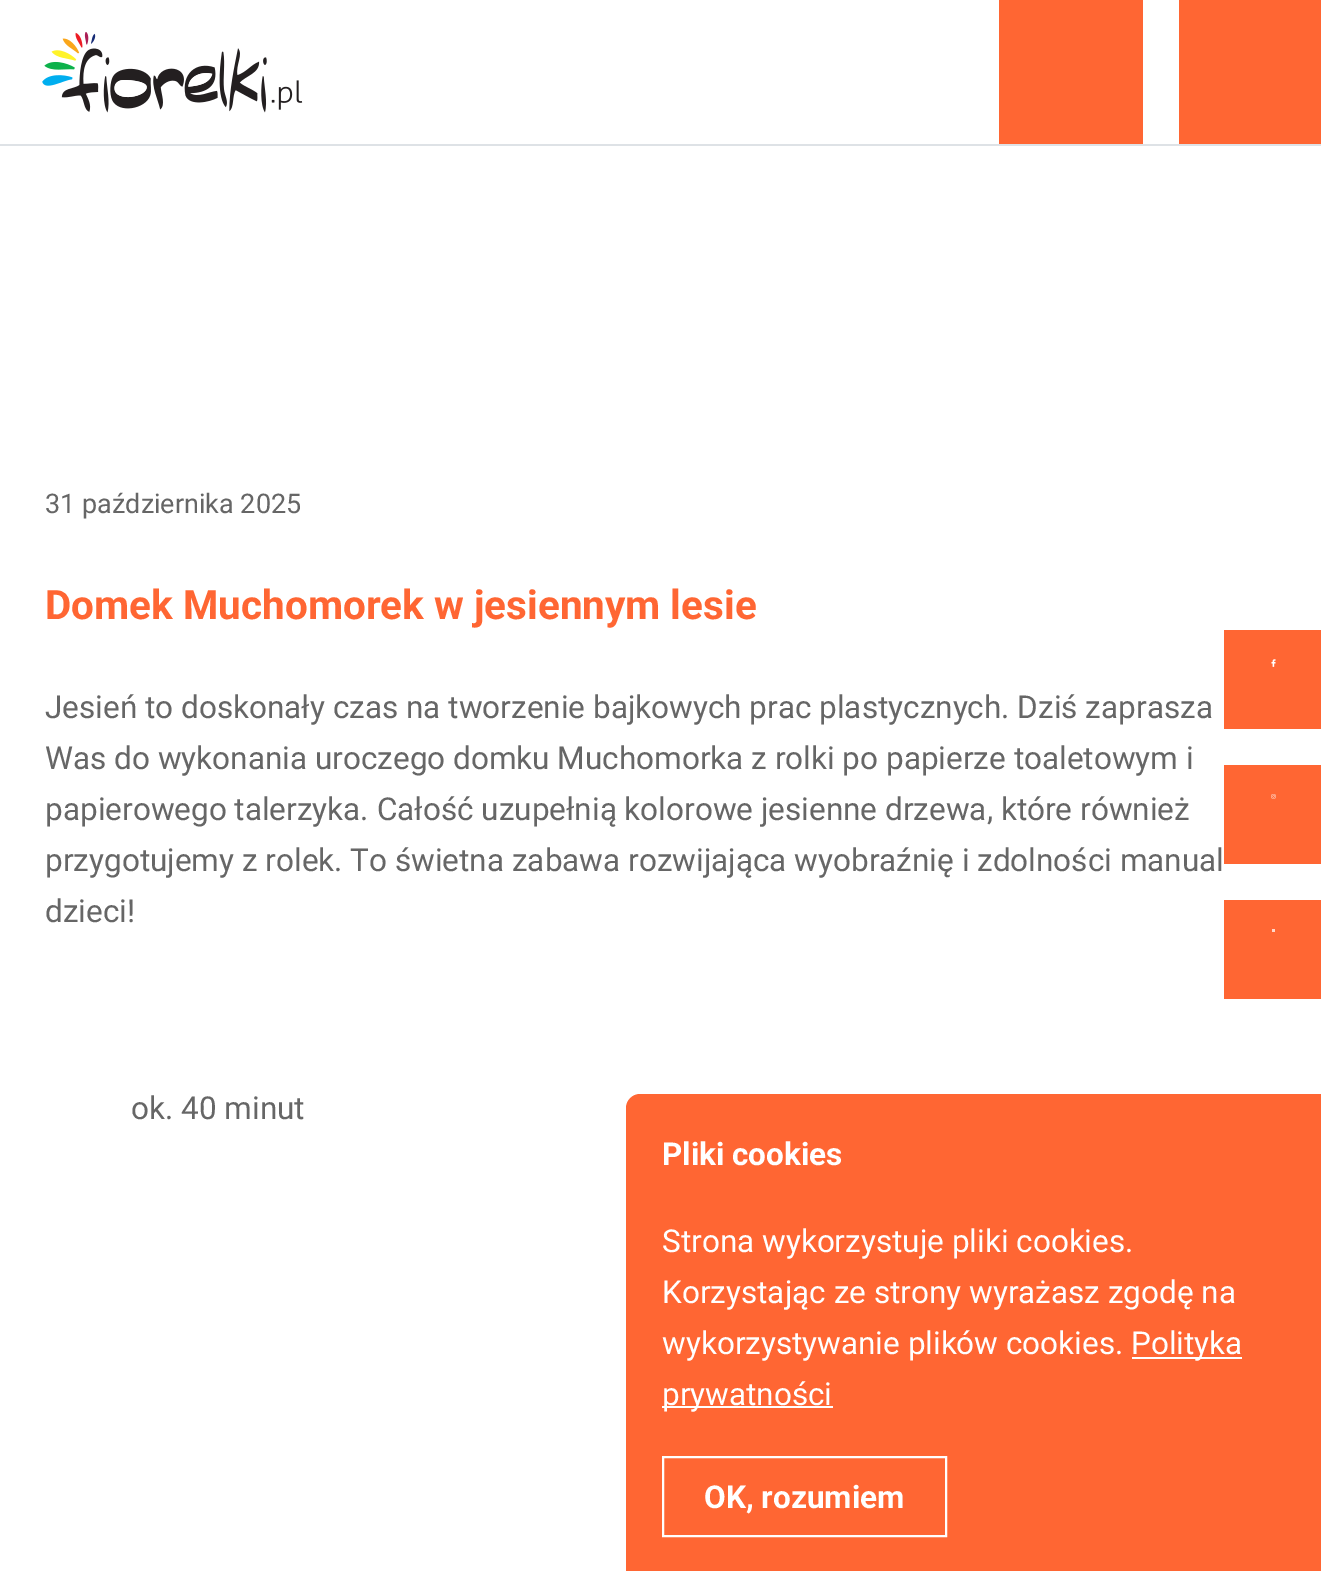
%!PS
<< /PageSize [1321 1571] >> setpagedevice
/rgb { dup -16 bitshift 255 div exch dup -8 bitshift 255 and 255 div exch 255 and 255 div setrgbcolor } def
/font { [ exch dup neg 0 0 3 -1 roll 0 0 ] selectfont } def
/text { moveto show } def
/picture { 5 dict begin { /h /w /y /x /name } { exch def } forall
  gsave x y translate w h scale
  w h 8 [w 0 0 h 0 0] name (r) file false 3 colorimage grestore end } def
0 1571 translate 1 -1 scale
4 setmiterlimit
/s1 { /Roboto-Regular 27 font 16#666666 rgb } def
/s2 { /Roboto-Bold 40.5 font 16#FF6633 rgb } def
/s3 { /Roboto-Regular 31.5 font 16#666666 rgb } def
/s4 { /Roboto-Bold 31.5 font 16#FFFFFF rgb } def
/s5 { /Roboto-Regular 31.5 font 16#FFFFFF rgb } def
16#FFFFFF rgb
0 0 1321 1571 rectfill
16#DEE2E6 rgb
0 144 1321 2 rectfill
(pic1.raw) 42 32 261 81 picture
16#FF6633 rgb
999 0 144 144 rectfill
1179 0 142 144 rectfill
s1
(31 października 2025) 45 513 text
s2
(Domek Muchomorek w jesiennym lesie) 45 619 text
s3
(Jesień to doskonały czas na tworzenie bajkowych prac plastycznych. Dziś zaprasza) 45 718 text
(Was do wykonania uroczego domku Muchomorka z rolki po papierze toaletowym i) 45 769 text
(papierowego talerzyka. Całość uzupełnią kolorowe jesienne drzewa, które również) 45 820 text
(przygotujemy z rolek. To świetna zabawa rozwijająca wyobraźnię i zdolności manual) 45 871 text
(dzieci!) 45 922 text
(ok. 40 minut) 131 1119 text
16#FF6633 rgb
1224 630 97 99 rectfill
(pic2.raw) 1271 659 5 8 picture
1224 765 97 99 rectfill
(pic3.raw) 1271 794 5 5 picture
1224 900 97 99 rectfill
16#FFD6C8 rgb
1272 929 3 3 rectfill
16#FF6633 rgb
640 1094 moveto 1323 1094 lineto 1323 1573 lineto 626 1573 lineto 626 1108 lineto 626 1100.5 632.5 1094 640 1094 curveto closepath fill
s4
(Pliki cookies) 662 1165 text
s5
(Strona wykorzystuje pliki cookies.) 662 1252 text
(Korzystając ze strony wyrażasz zgodę na) 662 1303 text
(wykorzystywanie plików cookies.) 662 1354 text
1132 1357 110 2 rectfill
(Polityka) 1131 1354 text
662 1406 171 2 rectfill
(prywatności) 662 1405 text
2 setlinewidth
663 1457 283 79 rectstroke
s4
(OK, rozumiem) 704 1508 text
showpage
